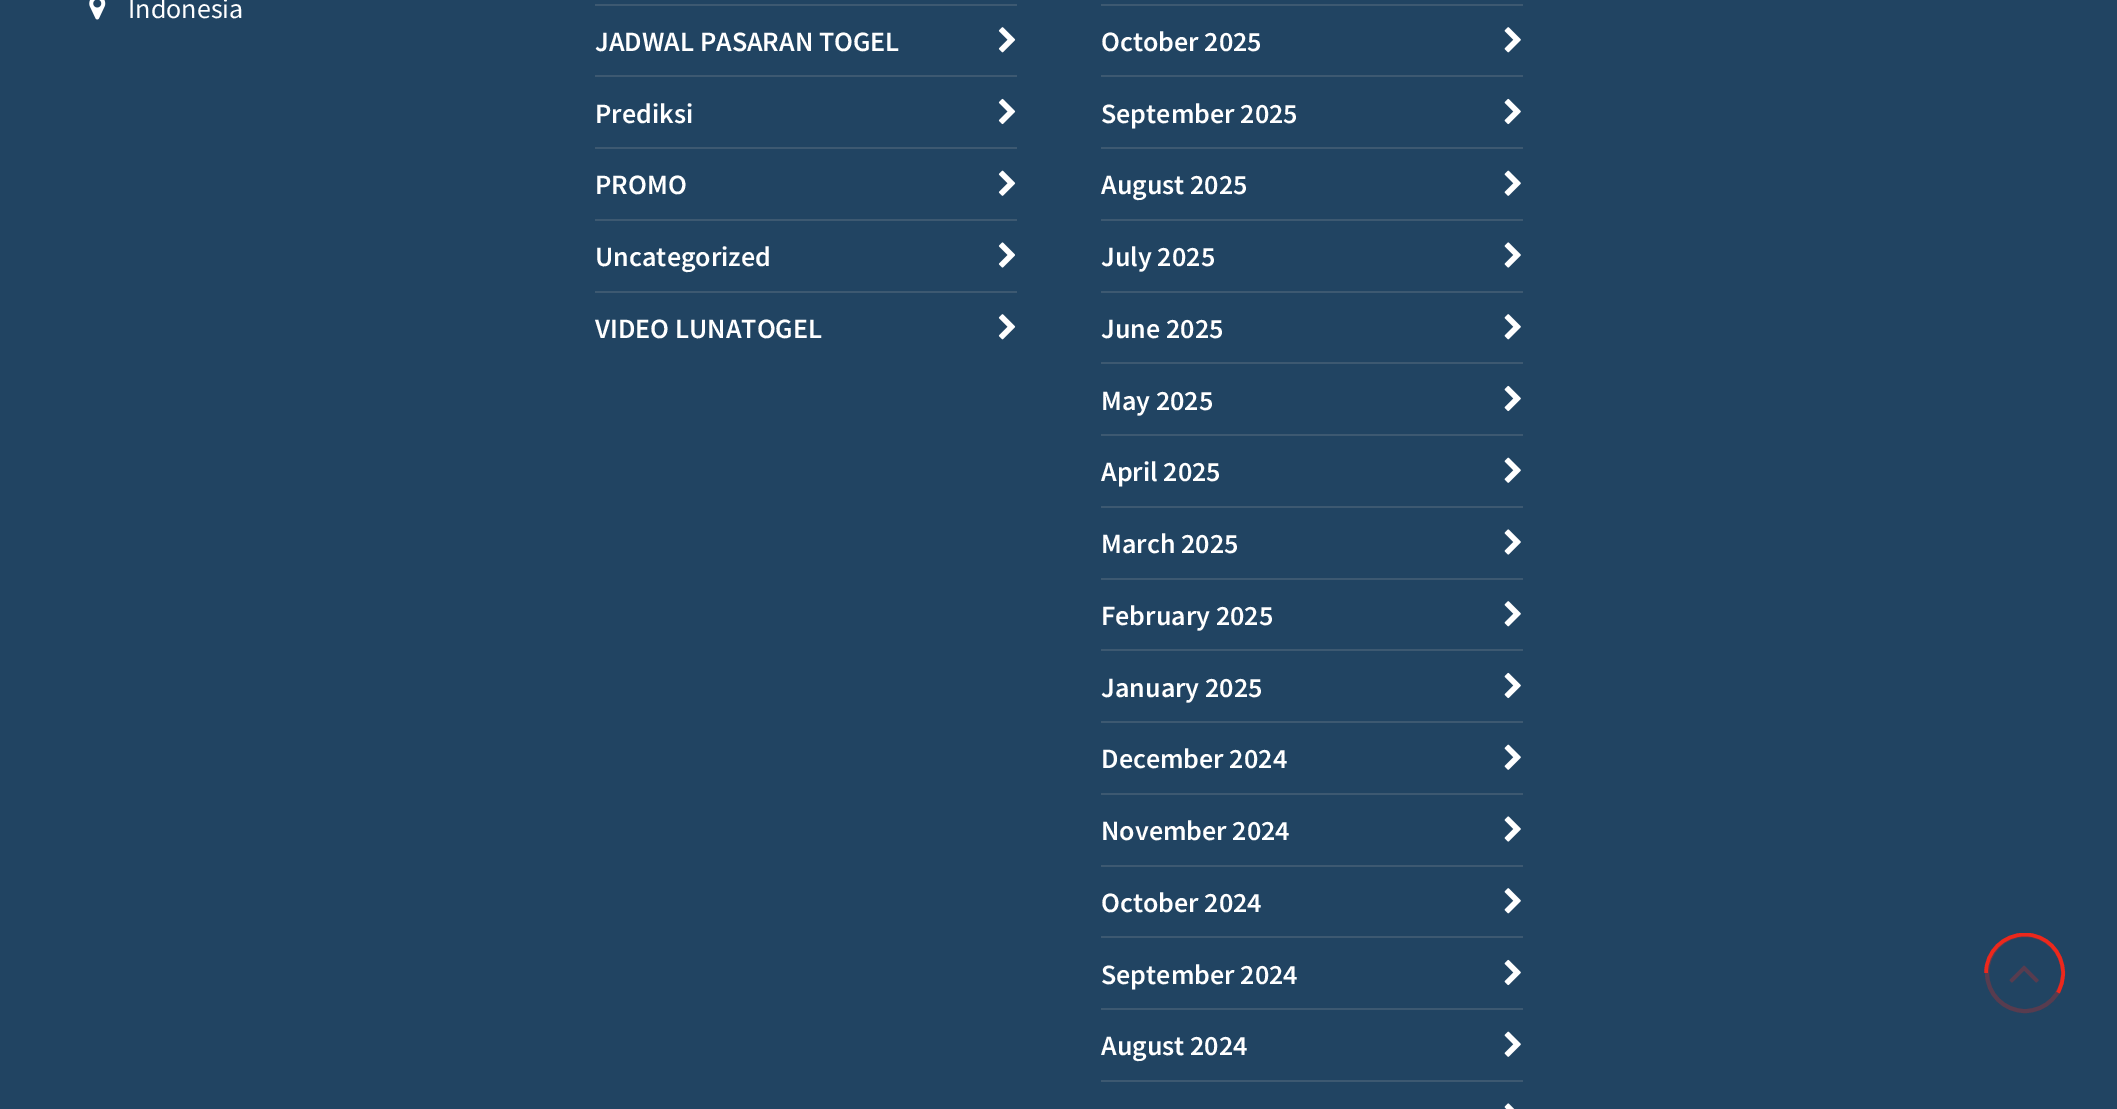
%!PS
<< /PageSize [2117 1109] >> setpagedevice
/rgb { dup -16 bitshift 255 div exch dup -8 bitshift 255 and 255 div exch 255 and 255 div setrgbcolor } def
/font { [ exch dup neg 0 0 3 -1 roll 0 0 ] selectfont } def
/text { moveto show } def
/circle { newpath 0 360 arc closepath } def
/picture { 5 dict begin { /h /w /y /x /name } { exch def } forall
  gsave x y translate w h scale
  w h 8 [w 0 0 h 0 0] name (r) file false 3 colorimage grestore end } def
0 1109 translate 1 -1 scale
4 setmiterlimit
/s1 { /SourceSansPro-Regular 28 font 16#FFFFFF rgb } def
/s2 { /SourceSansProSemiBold-SemiBold 28 font 16#FFFFFF rgb } def
16#214462 rgb
0 0 2117 1109 rectfill
(pic1.raw) 89 0 17 20 picture
s1
(Indonesia) 128 18 text
16#3D5971 rgb
595 4 422 2 rectfill
595 75 422 2 rectfill
s2
(JADWAL PASARAN TOGEL) 595 51 text
(pic2.raw) 998 27 18 26 picture
16#3D5971 rgb
595 147 422 2 rectfill
s2
(Prediksi) 595 123 text
(pic3.raw) 998 98 18 27 picture
16#3D5971 rgb
595 219 422 2 rectfill
s2
(PROMO) 595 194 text
(pic4.raw) 998 170 18 26 picture
16#3D5971 rgb
595 291 422 2 rectfill
s2
(Uncategorized) 595 266 text
(pic5.raw) 998 242 17 26 picture
(VIDEO LUNATOGEL) 595 338 text
(pic2.raw) 998 314 18 26 picture
16#3D5971 rgb
1101 4 422 2 rectfill
1101 75 422 2 rectfill
s2
(October 2025) 1101 51 text
(pic6.raw) 1504 27 17 26 picture
16#3D5971 rgb
1101 147 422 2 rectfill
s2
(September 2025) 1101 123 text
(pic7.raw) 1504 98 17 27 picture
16#3D5971 rgb
1101 219 422 2 rectfill
s2
(August 2025) 1101 194 text
(pic8.raw) 1504 170 17 26 picture
16#3D5971 rgb
1101 291 422 2 rectfill
s2
(July 2025) 1101 266 text
(pic9.raw) 1504 242 17 26 picture
16#3D5971 rgb
1101 362 422 2 rectfill
s2
(June 2025) 1101 338 text
(pic6.raw) 1504 314 17 26 picture
16#3D5971 rgb
1101 434 422 2 rectfill
s2
(May 2025) 1101 410 text
(pic7.raw) 1504 385 17 27 picture
16#3D5971 rgb
1101 506 422 2 rectfill
s2
(April 2025) 1101 481 text
(pic8.raw) 1504 457 17 26 picture
16#3D5971 rgb
1101 578 422 2 rectfill
s2
(March 2025) 1101 553 text
(pic9.raw) 1504 529 17 26 picture
16#3D5971 rgb
1101 649 422 2 rectfill
s2
(February 2025) 1101 625 text
(pic6.raw) 1504 601 17 26 picture
16#3D5971 rgb
1101 721 422 2 rectfill
s2
(January 2025) 1101 697 text
(pic7.raw) 1504 672 17 27 picture
16#3D5971 rgb
1101 793 422 2 rectfill
s2
(December 2024) 1101 768 text
(pic8.raw) 1504 744 17 26 picture
16#3D5971 rgb
1101 865 422 2 rectfill
s2
(November 2024) 1101 840 text
(pic9.raw) 1504 816 17 26 picture
16#3D5971 rgb
1101 936 422 2 rectfill
s2
(October 2024) 1101 912 text
(pic6.raw) 1504 888 17 26 picture
16#3D5971 rgb
1101 1008 422 2 rectfill
s2
(September 2024) 1101 984 text
(pic7.raw) 1504 959 17 27 picture
16#3D5971 rgb
1101 1080 422 2 rectfill
s2
(August 2024) 1101 1055 text
(pic8.raw) 1504 1031 17 26 picture
(pic10.raw) 1504 1103 11 6 picture
16#583C4F rgb
4 setlinewidth
2025 973 38 circle stroke
(pic11.raw) 2009 965 30 18 picture
gsave
1984.5 1013 moveto 1984.5 933 lineto 2065 933 lineto 2065 1013 lineto closepath clip newpath
16#EC281C rgb
3.5 setlinewidth
1986 973 moveto 1986 951.5 2003.5 934.5 2025 934.5 curveto 2046 934.5 2063 951.5 2063 973 curveto 2063 980 2061.5 986.5 2058 992.5 curveto stroke
grestore
showpage
